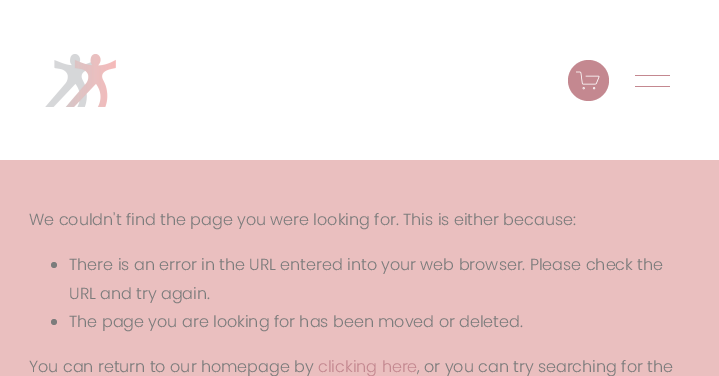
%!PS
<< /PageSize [719 376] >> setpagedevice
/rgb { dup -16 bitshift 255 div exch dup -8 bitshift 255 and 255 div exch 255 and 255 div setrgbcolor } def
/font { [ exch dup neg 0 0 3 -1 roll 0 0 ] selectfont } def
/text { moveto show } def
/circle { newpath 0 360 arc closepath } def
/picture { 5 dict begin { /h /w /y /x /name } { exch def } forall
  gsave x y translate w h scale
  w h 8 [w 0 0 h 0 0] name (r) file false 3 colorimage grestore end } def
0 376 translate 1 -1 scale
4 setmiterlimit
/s1 { /Poppins-Light 16 font 16#7C7C7C rgb } def
/s2 { /Poppins-Light 16 font 16#C48890 rgb } def
16#EABFBF rgb
0 0 719 376 rectfill
16#FFFFFF rgb
0 0 719 160 rectfill
(pic1.raw) 45 54 71 53 picture
16#C48890 rgb
588.5 80.5 20.5 circle fill
(pic2.raw) 576 71 24 19 picture
635 75 35 1 rectfill
635 86 35 1 rectfill
s1
(We couldn't find the page you were looking for. This is either because:) 29 225 text
54 265 3 circle fill
(There is an error in the URL entered into your web browser. Please check the) 69 270 text
(URL and try again.) 69 299 text
54 322 3 circle fill
(The page you are looking for has been moved or deleted.) 69 327 text
(You can return to our homepage by) 29 372 text
s2
(clicking here) 318 372 text
s1
(, or you can try searching for the) 417 372 text
showpage
